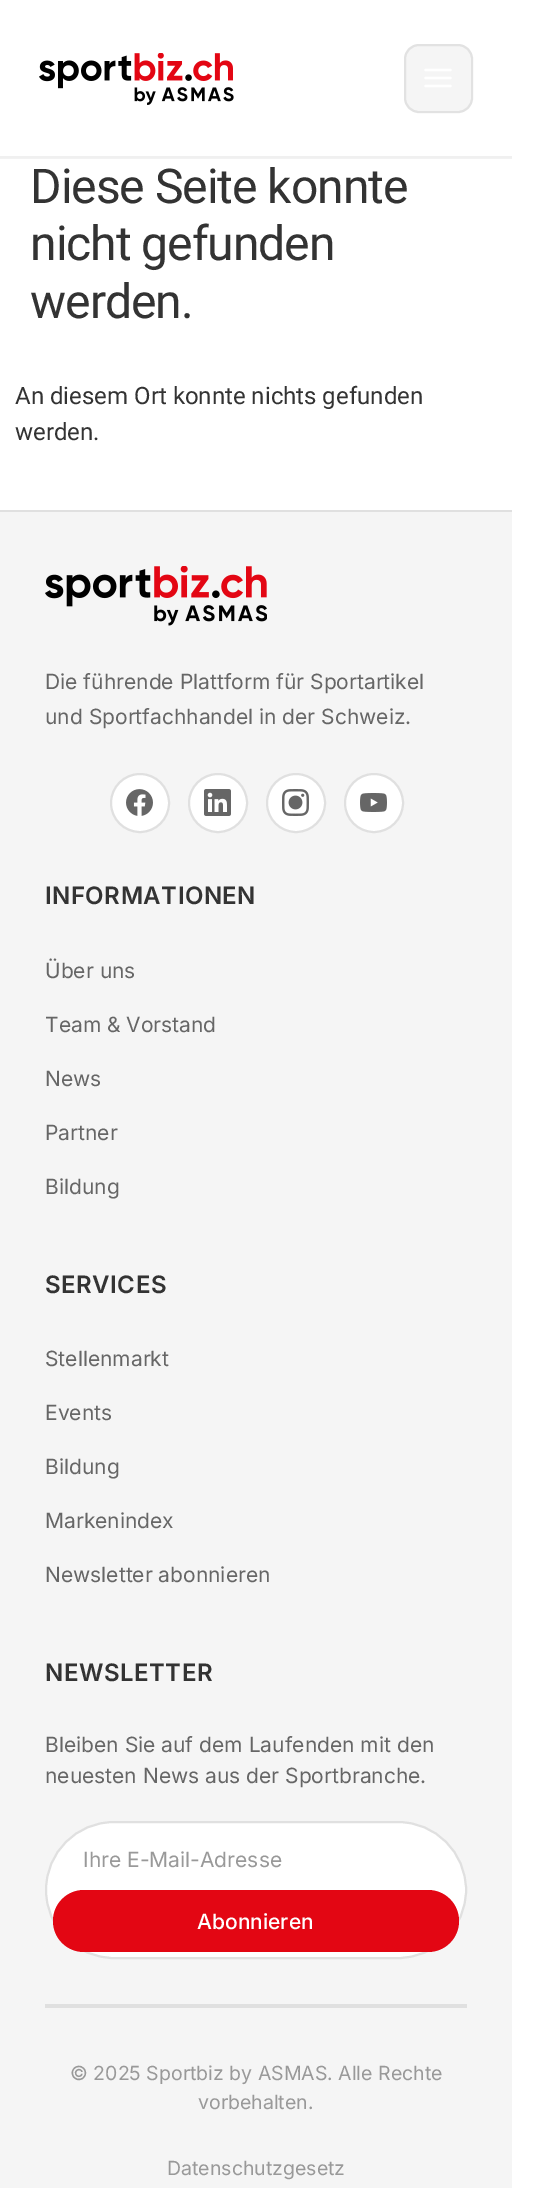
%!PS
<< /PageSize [533 2188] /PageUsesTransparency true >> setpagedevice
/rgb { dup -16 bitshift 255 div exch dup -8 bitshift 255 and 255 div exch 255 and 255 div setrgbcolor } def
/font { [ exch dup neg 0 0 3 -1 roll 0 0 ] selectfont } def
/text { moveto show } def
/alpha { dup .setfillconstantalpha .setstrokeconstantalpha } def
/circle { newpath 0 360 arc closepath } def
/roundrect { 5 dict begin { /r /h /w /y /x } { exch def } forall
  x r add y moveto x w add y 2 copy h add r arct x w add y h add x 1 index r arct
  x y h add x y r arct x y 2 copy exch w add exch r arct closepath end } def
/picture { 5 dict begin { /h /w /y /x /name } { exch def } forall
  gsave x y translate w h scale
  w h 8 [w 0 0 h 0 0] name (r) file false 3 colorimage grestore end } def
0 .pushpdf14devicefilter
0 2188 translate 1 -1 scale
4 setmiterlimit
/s1 { /Roboto-Regular 24 font 16#333333 rgb } def
/s2 { /Inter-Regular 21 font 16#666666 rgb } def
/s3 { /Inter-Regular 21 font 16#999999 rgb } def
/s4 { /Inter-Medium 21 font 16#FFFFFF rgb } def
/s5 { /Inter-Regular 19.5 font 16#999999 rgb } def
16#FFFFFF rgb
0 0 533 2188 rectfill
16#F2F2F2 rgb
0 158 moveto 0 159 lineto 512 159 lineto 512 2 lineto 512 158 lineto closepath fill
16#F0F0F0 rgb
0 156 512 2 rectfill
(pic1.raw) 39 53 195 52 picture
16#F5F5F5 rgb
404 44 69 69 15 roundrect fill
0.08 alpha
16#000000 rgb
2 setlinewidth
405 45 67 67 14 roundrect stroke
1 alpha
16#FFFFFF rgb
2.2 setlinewidth
1 setlinecap
1 setlinejoin
425.5 70 moveto 450.5 70 lineto 425.5 78 moveto 450.5 78 lineto 425.5 86 moveto 450.5 86 lineto stroke
/Roboto-Regular 48 font
16#333333 rgb
30 203 moveto -1 0 (Diese Seite konnte) ashow
30 260 moveto -1 0 (nicht gefunden) ashow
30 318 moveto -1 0 (werden.) ashow
s1
(An diesem Ort konnte nichts gefunden) 15 404 text
(werden.) 15 440 text
16#F5F5F5 rgb
0 512 512 1676 rectfill
16#E0E0E0 rgb
0 510 512 2 rectfill
45 2004 422 4 rectfill
(pic2.raw) 45 566 222 60 picture
s2
(Die führende Plattform für Sportartikel) 45 689 text
(und Sportfachhandel in der Schweiz.) 45 724 text
16#FFFFFF rgb
140 803 29 circle gsave fill grestore
16#E0E0E0 rgb
2 setlinewidth
0 setlinecap
0 setlinejoin
stroke
(pic3.raw) 126 789 27 27 picture
16#FFFFFF rgb
218 803 29 circle gsave fill grestore
16#E0E0E0 rgb
stroke
(pic4.raw) 204 789 27 27 picture
16#FFFFFF rgb
296 803 29 circle gsave fill grestore
16#E0E0E0 rgb
stroke
(pic5.raw) 282 789 27 27 picture
16#FFFFFF rgb
374 803 29 circle gsave fill grestore
16#E0E0E0 rgb
stroke
(pic6.raw) 360 793 27 19 picture
/Inter-SemiBold 24 font
16#333333 rgb
45 904 moveto 0.5 0 (INFORMATIONEN) ashow
s2
(Über uns) 45 978 text
(Team & Vorstand) 45 1032 text
(News) 45 1086 text
(Partner) 45 1140 text
(Bildung) 45 1194 text
/Inter-SemiBold 24 font
16#333333 rgb
45 1293 moveto 0.5 0 (SERVICES) ashow
s2
(Stellenmarkt) 45 1366 text
(Events) 45 1420 text
(Bildung) 45 1474 text
(Markenindex) 45 1528 text
(Newsletter abonnieren) 45 1582 text
/Inter-SemiBold 24 font
16#333333 rgb
45 1681 moveto 0.5 0 (NEWSLETTER) ashow
s2
(Bleiben Sie auf dem Laufenden mit den) 45 1752 text
(neuesten News aus der Sportbranche.) 45 1783 text
16#FFFFFF rgb
46 1822 420 136 68 roundrect gsave fill grestore
16#E0E0E0 rgb
stroke
s3
(Ihre E-Mail-Adresse) 83 1867 text
16#E30613 rgb
53 1890 406 62 31 roundrect fill
s4
(Abonnieren) 197 1929 text
s5
(© 2025 Sportbiz by ASMAS. Alle Rechte) 70 2080 text
(vorbehalten.) 198 2109 text
(Datenschutzgesetz) 167 2175 text
.poppdf14devicefilter showpage
